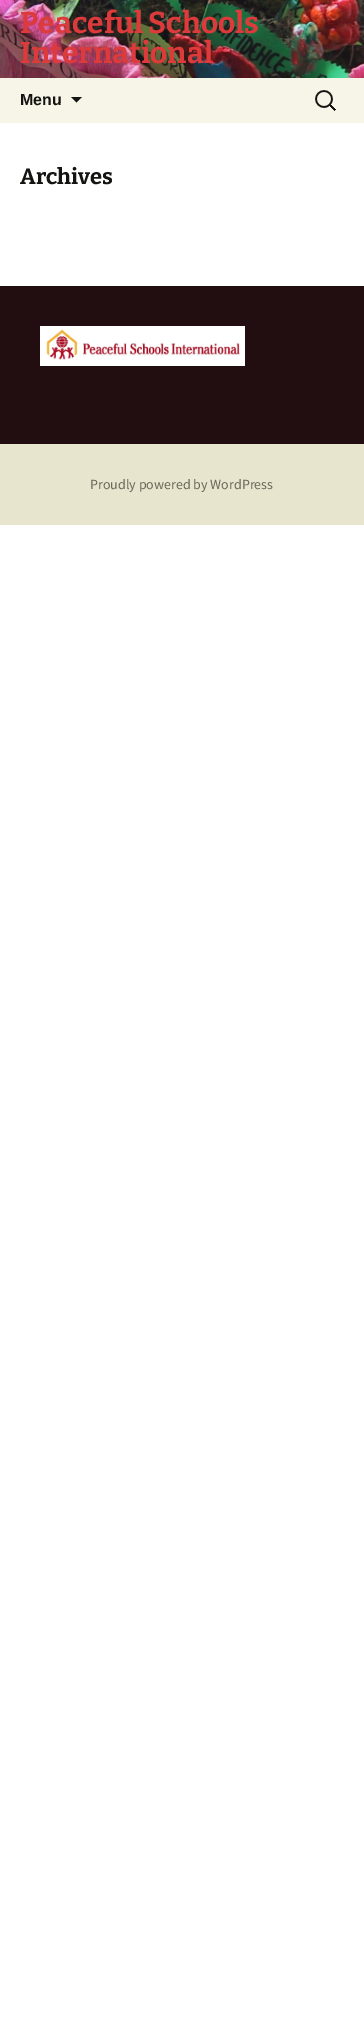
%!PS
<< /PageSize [364 2037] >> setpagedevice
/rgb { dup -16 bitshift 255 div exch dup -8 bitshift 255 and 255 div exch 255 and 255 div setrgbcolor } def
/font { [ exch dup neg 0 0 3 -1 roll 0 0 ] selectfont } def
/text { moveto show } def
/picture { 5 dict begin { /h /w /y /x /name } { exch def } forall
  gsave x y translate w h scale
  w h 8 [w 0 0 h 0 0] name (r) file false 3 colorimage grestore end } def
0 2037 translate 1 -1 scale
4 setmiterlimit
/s1 { /Bitter-Thin 30 font 16#DD3B3B rgb } def
/s2 { /LiberationSans-Bold 16 font 16#141412 rgb } def
/s3 { /Bitter-Thin 22 font 16#141412 rgb } def
/s4 { /SourceSansPro-Regular 14 font 16#686758 rgb } def
16#FFFFFF rgb
0 0 364 2037 rectfill
(pic1.raw) 0 0 364 78 picture
s1
(Peaceful Schools) 20 33 text
(International) 20 63 text
16#F7F5E7 rgb
0 78 364 45 rectfill
s2
(Menu) 20 105 text
71 97 moveto 82 97 lineto 76.5 102.5 lineto closepath fill
(pic2.raw) 315 90 21 21 picture
s3
(Archives) 20 184 text
16#E8E5CE rgb
0 444 364 81 rectfill
16#220E10 rgb
0 286 364 158 rectfill
(pic3.raw) 40 326 205 40 picture
s4
(Proudly powered by WordPress) 90 489 text
showpage
